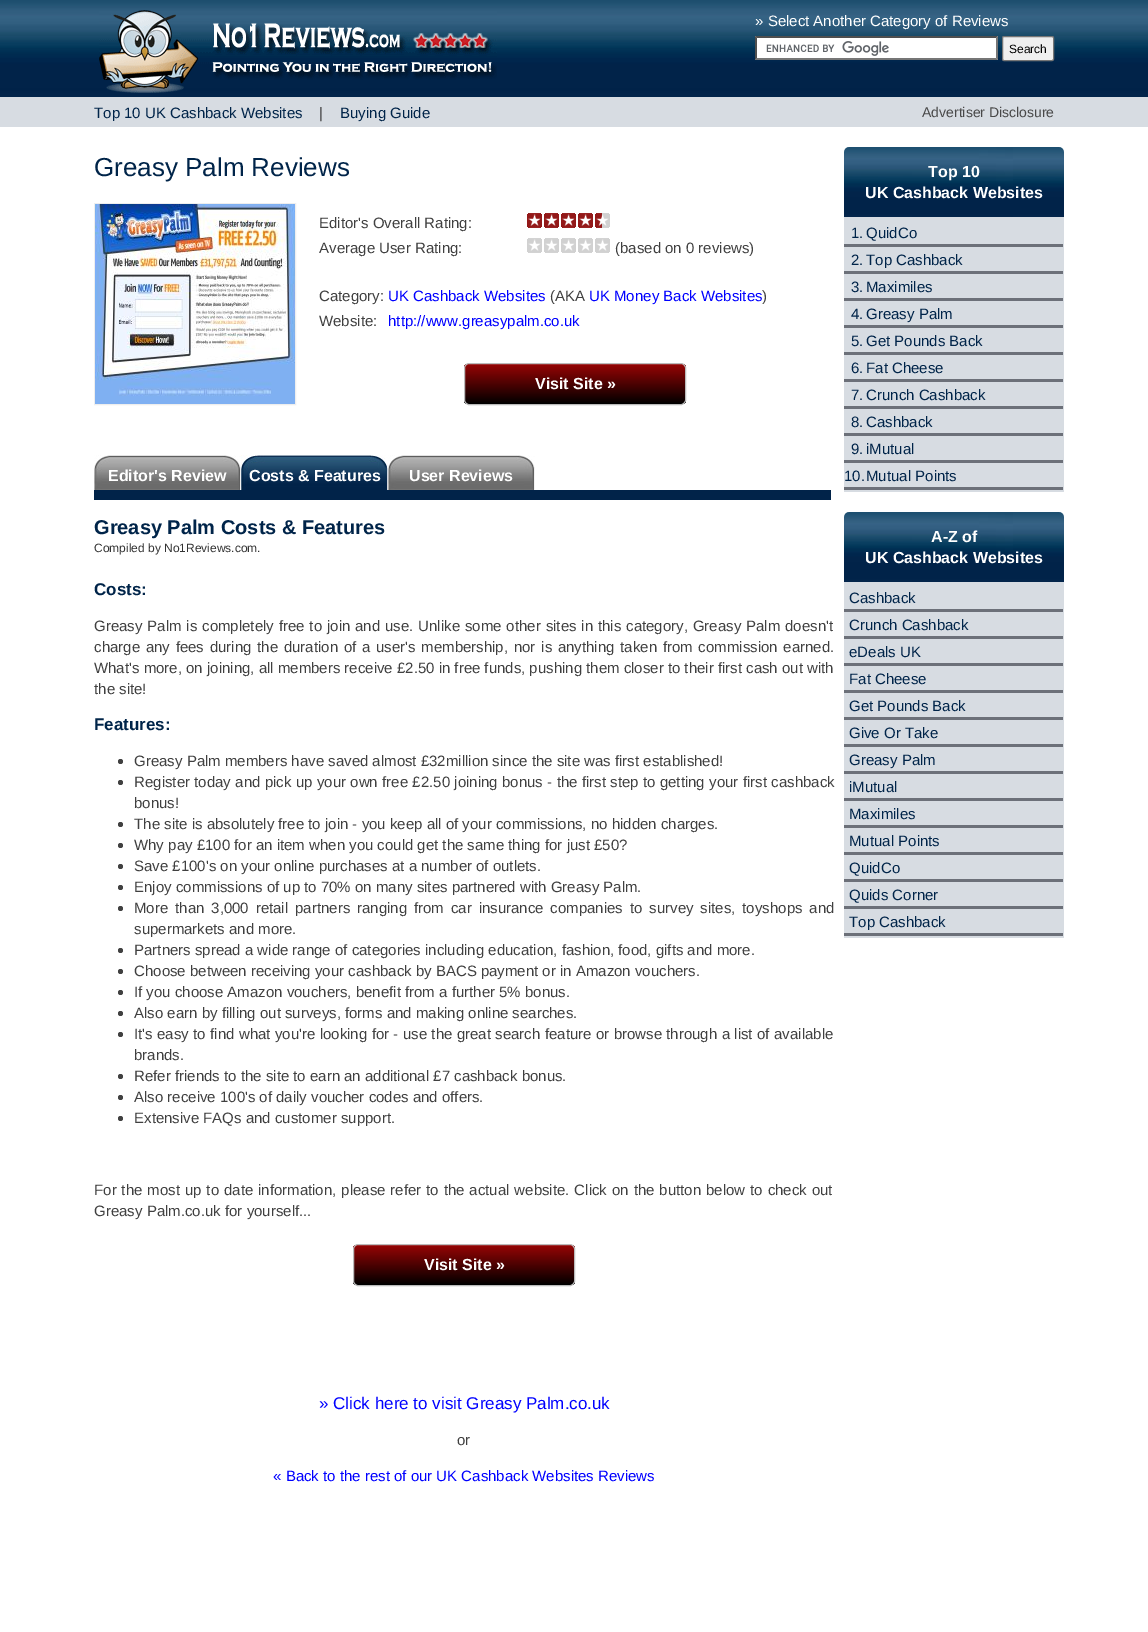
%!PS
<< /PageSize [1148 1632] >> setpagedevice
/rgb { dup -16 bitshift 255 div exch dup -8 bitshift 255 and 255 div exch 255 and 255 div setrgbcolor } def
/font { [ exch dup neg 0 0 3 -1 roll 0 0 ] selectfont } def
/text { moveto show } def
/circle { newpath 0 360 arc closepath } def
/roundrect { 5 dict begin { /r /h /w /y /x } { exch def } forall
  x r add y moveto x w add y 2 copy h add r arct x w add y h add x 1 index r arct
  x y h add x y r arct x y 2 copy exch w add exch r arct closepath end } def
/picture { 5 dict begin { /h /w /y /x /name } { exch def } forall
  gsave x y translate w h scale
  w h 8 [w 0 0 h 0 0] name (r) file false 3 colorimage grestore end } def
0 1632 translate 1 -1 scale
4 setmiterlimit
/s1 { /LiberationSans-Regular 15 font 16#FFFFFF rgb } def
/s2 { /LiberationSans-Regular 12 font 16#000000 rgb } def
/s3 { /LiberationSans-Regular 15 font 16#002449 rgb } def
/s4 { /LiberationSans-Regular 15 font 16#404040 rgb } def
/s5 { /LiberationSans-Regular 14 font 16#494949 rgb } def
/s6 { /LiberationSans-Regular 26 font 16#002449 rgb } def
/s7 { /LiberationSans-Regular 15 font 16#0000FF rgb } def
/s8 { /LiberationSans-Bold 16 font 16#FFFFFF rgb } def
/s9 { /LiberationSans-Bold 20 font 16#002449 rgb } def
/s10 { /LiberationSans-Regular 12 font 16#333333 rgb } def
/s11 { /LiberationSans-Bold 17 font 16#002449 rgb } def
/s12 { /LiberationSans-Regular 17 font 16#0000FF rgb } def
16#FFFFFF rgb
0 0 1148 1632 rectfill
(pic1.raw) 0 0 1148 97 picture
(pic2.raw) 99 10 398 83 picture
s1
(» Select Another Category of Reviews) 755 26 text
755 36 243 24 rectfill
(pic3.raw) 766 41 123 15 picture
16#4F4F4F rgb
755 36 moveto 998 36 lineto 996 38 lineto 757 38 lineto closepath fill
16#767676 rgb
998 36 moveto 998 60 lineto 996 58 lineto 996 38 lineto closepath fill
998 60 moveto 755 60 lineto 757 58 lineto 996 58 lineto closepath fill
16#4F4F4F rgb
755 60 moveto 755 36 lineto 757 38 lineto 757 58 lineto closepath fill
16#EFEFEF rgb
1002.5 36.5 51 24 1.5 roundrect gsave fill grestore
16#767676 rgb
stroke
s2
(Search) 1009 53 text
16#D7DCE2 rgb
0 97 1148 30 rectfill
s3
(Top 10 UK Cashback Websites) 94 118 text
s4
(|) 319 118 text
s3
(Buying Guide) 340 118 text
s5
(Advertiser Disclosure) 922 117 text
s6
(Greasy Palm Reviews) 94 176 text
16#EEEEEE rgb
94.5 203.5 201 201 rectstroke
(pic4.raw) 95 204 200 200 picture
s4
(Editor's Overall Rating:) 319 228 text
(pic5.raw) 602 213 8 15 picture
(pic6.raw) 527 213 75 15 picture
(Average User Rating:) 319 253 text
(pic7.raw) 527 238 83 15 picture
(\(based on 0 reviews\)) 615 253 text
(Category:) 319 301 text
s7
(UK Cashback Websites) 388 301 text
s4
(\(AKA) 550 301 text
s7
(UK Money Back Websites) 589 301 text
s4
(\)) 762 301 text
(Website:) 319 326 text
s7
(http://www.greasypalm.co.uk) 388 326 text
gsave
464 363 222 42 5 roundrect clip newpath
gsave 464 364 moveto 686 364 lineto 686 404 lineto 464 404 lineto closepath clip newpath
<< /ShadingType 2 /ColorSpace /DeviceRGB /Coords [575 364 575 404] /Extend [true true] /Function << /FunctionType 2 /Domain [0 1] /C0 [0.592 0.016 0.016] /C1 [0 0 0] /N 1 >> >> shfill grestore
grestore
16#BBBBBB rgb
464.5 363.5 221 41 4.5 roundrect stroke
s8
(Visit Site ») 535 389 text
(pic8.raw) 94 455 147 35 picture
(Editor's Review) 108 481 text
(pic9.raw) 241 455 147 35 picture
(Costs & Features) 249 481 text
(pic8.raw) 388 455 147 35 picture
(User Reviews) 409 481 text
16#012349 rgb
94 490 737 10 rectfill
s9
(Greasy Palm Costs & Features) 94 534 text
s10
(Compiled by No1Reviews.com.) 94 552 text
s11
(Costs:) 94 595 text
/LiberationSans-Regular 15 font
16#404040 rgb
94 631 moveto 0.75 0 32 (Greasy Palm is completely free to join and use. Unlike some other sites in this category, Greasy Palm doesn't) widthshow
94 652 moveto 1.6 0 32 (charge any fees during the duration of a user's membership, nor is anything taken from commission earned.) widthshow
(What's more, on joining, all members receive £2.50 in free funds, pushing them closer to their first cash out with) 94 673 text
(the site!) 94 694 text
s11
(Features:) 94 730 text
16#404040 rgb
120.5 761.5 2.5 circle fill
s4
(Greasy Palm members have saved almost £32million since the site was first established!) 134 766 text
120.5 782.5 2.5 circle fill
134 787 moveto 0.2 0 32 (Register today and pick up your own free £2.50 joining bonus - the first step to getting your first cashback) widthshow
(bonus!) 134 808 text
120.5 824.5 2.5 circle fill
(The site is absolutely free to join - you keep all of your commissions, no hidden charges.) 134 829 text
120.5 845.5 2.5 circle fill
(Why pay £100 for an item when you could get the same thing for just £50?) 134 850 text
120.5 866.5 2.5 circle fill
(Save £100's on your online purchases at a number of outlets.) 134 871 text
120.5 887.5 2.5 circle fill
(Enjoy commissions of up to 70% on many sites partnered with Greasy Palm.) 134 892 text
120.5 908.5 2.5 circle fill
134 913 moveto 2.75 0 32 (More than 3,000 retail partners ranging from car insurance companies to survey sites, toyshops and) widthshow
(supermarkets and more.) 134 934 text
120.5 950.5 2.5 circle fill
(Partners spread a wide range of categories including education, fashion, food, gifts and more.) 134 955 text
120.5 971.5 2.5 circle fill
(Choose between receiving your cashback by BACS payment or in Amazon vouchers.) 134 976 text
120.5 992.5 2.5 circle fill
(If you choose Amazon vouchers, benefit from a further 5% bonus.) 134 997 text
120.5 1013.5 2.5 circle fill
(Also earn by filling out surveys, forms and making online searches.) 134 1018 text
120.5 1034.5 2.5 circle fill
134 1039 moveto 0.25 0 32 (It's easy to find what you're looking for - use the great search feature or browse through a list of available) widthshow
(brands.) 134 1060 text
120.5 1076.5 2.5 circle fill
(Refer friends to the site to earn an additional £7 cashback bonus.) 134 1081 text
120.5 1097.5 2.5 circle fill
(Also receive 100's of daily voucher codes and offers.) 134 1102 text
120.5 1118.5 2.5 circle fill
(Extensive FAQs and customer support.) 134 1123 text
94 1195 moveto 0.8 0 32 (For the most up to date information, please refer to the actual website. Click on the button below to check out) widthshow
(Greasy Palm.co.uk for yourself...) 94 1216 text
gsave
353 1244 222 42 5 roundrect clip newpath
gsave 353 1245 moveto 575 1245 lineto 575 1285 lineto 353 1285 lineto closepath clip newpath
<< /ShadingType 2 /ColorSpace /DeviceRGB /Coords [464 1245 464 1285] /Extend [true true] /Function << /FunctionType 2 /Domain [0 1] /C0 [0.592 0.016 0.016] /C1 [0 0 0] /N 1 >> >> shfill grestore
grestore
16#BBBBBB rgb
353.5 1244.5 221 41 4.5 roundrect stroke
s8
(Visit Site ») 424 1270 text
s12
(» Click here to visit Greasy Palm.co.uk) 319 1409 text
s4
(or) 457 1445 text
s7
(« Back to the rest of our UK Cashback Websites Reviews) 273 1481 text
(pic10.raw) 844 147 220 70 picture
s8
(Top 10) 928 177 text
(UK Cashback Websites) 865 198 text
16#D7DCE2 rgb
844 217 220 275 rectfill
s3
(1.) 851 238 text
(QuidCo) 866 238 text
16#6C7079 rgb
844 244 219 3 rectfill
s3
(2.) 851 265 text
(Top Cashback) 866 265 text
16#6C7079 rgb
844 271 219 3 rectfill
s3
(3.) 851 292 text
(Maximiles) 866 292 text
16#6C7079 rgb
844 298 219 3 rectfill
s3
(4.) 851 319 text
(Greasy Palm) 866 319 text
16#6C7079 rgb
844 325 219 3 rectfill
s3
(5.) 851 346 text
(Get Pounds Back) 866 346 text
16#6C7079 rgb
844 352 219 3 rectfill
s3
(6.) 851 373 text
(Fat Cheese) 866 373 text
16#6C7079 rgb
844 379 219 3 rectfill
s3
(7.) 851 400 text
(Crunch Cashback) 866 400 text
16#6C7079 rgb
844 406 219 3 rectfill
s3
(8.) 851 427 text
(Cashback) 866 427 text
16#6C7079 rgb
844 433 219 3 rectfill
s3
(9.) 851 454 text
(iMutual) 866 454 text
16#6C7079 rgb
844 460 219 3 rectfill
s3
(10.) 844 481 text
(Mutual Points) 866 481 text
16#6C7079 rgb
844 487 219 3 rectfill
(pic10.raw) 844 512 220 70 picture
s8
(A-Z of) 931 542 text
(UK Cashback Websites) 865 563 text
16#D7DCE2 rgb
844 582 220 356 rectfill
s3
(Cashback) 849 603 text
16#6C7079 rgb
844 609 219 3 rectfill
s3
(Crunch Cashback) 849 630 text
16#6C7079 rgb
844 636 219 3 rectfill
s3
(eDeals UK) 849 657 text
16#6C7079 rgb
844 663 219 3 rectfill
s3
(Fat Cheese) 849 684 text
16#6C7079 rgb
844 690 219 3 rectfill
s3
(Get Pounds Back) 849 711 text
16#6C7079 rgb
844 717 219 3 rectfill
s3
(Give Or Take) 849 738 text
16#6C7079 rgb
844 744 219 3 rectfill
s3
(Greasy Palm) 849 765 text
16#6C7079 rgb
844 771 219 3 rectfill
s3
(iMutual) 849 792 text
16#6C7079 rgb
844 798 219 3 rectfill
s3
(Maximiles) 849 819 text
16#6C7079 rgb
844 825 219 3 rectfill
s3
(Mutual Points) 849 846 text
16#6C7079 rgb
844 852 219 3 rectfill
s3
(QuidCo) 849 873 text
16#6C7079 rgb
844 879 219 3 rectfill
s3
(Quids Corner) 849 900 text
16#6C7079 rgb
844 906 219 3 rectfill
s3
(Top Cashback) 849 927 text
16#6C7079 rgb
844 933 219 3 rectfill
showpage
